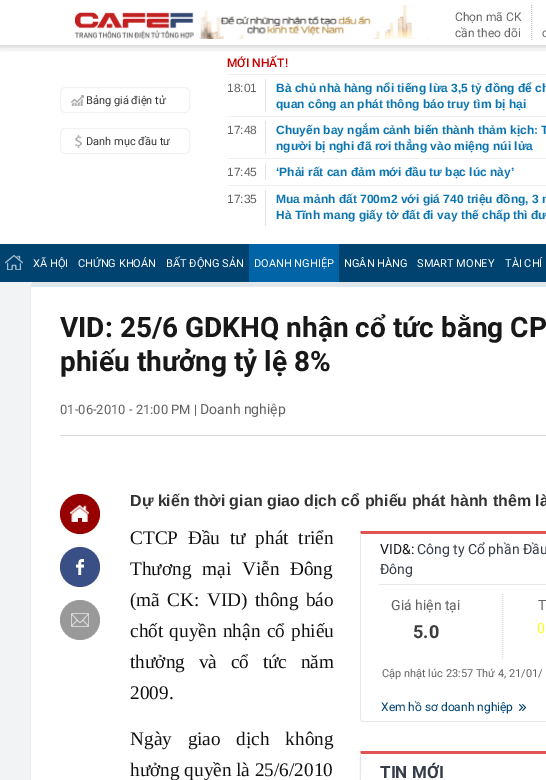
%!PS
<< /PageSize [546 780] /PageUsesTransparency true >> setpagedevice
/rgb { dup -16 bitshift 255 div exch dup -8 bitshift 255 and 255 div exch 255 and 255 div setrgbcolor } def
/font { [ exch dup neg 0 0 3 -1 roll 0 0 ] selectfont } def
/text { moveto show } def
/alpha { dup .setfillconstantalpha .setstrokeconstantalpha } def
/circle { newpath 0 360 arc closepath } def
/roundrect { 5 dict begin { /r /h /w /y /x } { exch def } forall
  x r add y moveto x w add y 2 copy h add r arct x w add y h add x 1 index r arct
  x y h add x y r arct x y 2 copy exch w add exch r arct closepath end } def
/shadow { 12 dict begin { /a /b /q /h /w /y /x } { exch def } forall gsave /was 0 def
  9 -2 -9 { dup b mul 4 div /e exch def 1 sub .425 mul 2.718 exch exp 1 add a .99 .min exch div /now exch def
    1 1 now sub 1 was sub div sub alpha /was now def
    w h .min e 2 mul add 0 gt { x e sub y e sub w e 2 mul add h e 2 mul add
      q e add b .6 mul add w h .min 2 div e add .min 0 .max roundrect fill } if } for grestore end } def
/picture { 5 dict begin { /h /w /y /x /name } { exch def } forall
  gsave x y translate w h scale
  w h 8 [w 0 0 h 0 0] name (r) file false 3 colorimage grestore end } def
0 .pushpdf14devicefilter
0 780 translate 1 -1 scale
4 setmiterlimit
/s1 { /Roboto-Regular 12 font 16#676767 rgb } def
/s2 { /Roboto-Regular 11 font 16#333333 rgb } def
/s3 { /Roboto-Medium 12 font 16#C90000 rgb } def
/s4 { /LiberationSans-Regular 12 font 16#616161 rgb } def
/s5 { /LiberationSans-Bold 12 font 16#0B75B1 rgb } def
/s6 { /Roboto-Regular 11 font 16#FEFEFE rgb } def
/s7 { /Roboto-Bold 28 font 16#181818 rgb } def
/s8 { /Roboto-Regular 13 font 16#616161 rgb } def
/s9 { /Roboto-Regular 14 font 16#616161 rgb } def
/s10 { /LiberationSans-Bold 16 font 16#333333 rgb } def
/s11 { /LiberationSerif-Regular 19.25 font 16#111111 rgb } def
/s12 { /Roboto-Regular 14 font 16#121417 rgb } def
/s13 { /Roboto-Regular 14 font 16#363D49 rgb } def
/s14 { /Roboto-Bold 18 font 16#3D3D3D rgb } def
/s15 { /Roboto-Regular 14 font 16#FDFF12 rgb } def
/s16 { /Roboto-Regular 11 font 16#616161 rgb } def
/s17 { /Roboto-Regular 12 font 16#004370 rgb } def
/s18 { /Roboto-Bold 17 font 16#363D49 rgb } def
16#FFFFFF rgb
0 0 546 780 rectfill
gsave
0 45 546 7 rectclip
16#333333 rgb
0 -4 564 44 0 6 1 shadow
grestore
(pic1.raw) 75 5 355 34 picture
16#C2C2C2 rgb
[1 1] 0 setdash
531.5 5 moveto 531.5 41 lineto stroke
s1
(Chọn mã CK) 455 21 text
(cần theo dõi) 455 37 text
(c) 542 37 text
16#FFFFFF rgb
0 44 546 1 rectfill
16#F2F2F2 rgb
[] 0 setdash
60.5 87.5 129 25 4.5 roundrect stroke
(pic2.raw) 71 95 13 11 picture
s2
(Bảng giá điện tử) 86 104 text
(pic3.raw) 75 135 7 13 picture
16#F2F2F2 rgb
60.5 128.5 129 25 4.5 roundrect stroke
s2
(Danh mục đầu tư) 86 145 text
s3
(MỚI NHẤT!) 227 67 text
16#F0F0F0 rgb
227 74 319 1 rectfill
s4
(18:01) 227 92 text
16#E4E4E4 rgb
265 79 1 33 rectfill
s5
(Bà chủ nhà hàng nổi tiếng lừa 3,5 tỷ đồng để ch) 276 92 text
(quan công an phát thông báo truy tìm bị hại) 276 108 text
16#F0F0F0 rgb
227 116 319 1 rectfill
s4
(17:48) 227 134 text
16#E4E4E4 rgb
265 121 1 33 rectfill
s5
(Chuyến bay ngắm cảnh biến thành thảm kịch: T) 276 134 text
(người bị nghi đã rơi thẳng vào miệng núi lửa) 276 150 text
16#F0F0F0 rgb
227 158 319 1 rectfill
s4
(17:45) 227 176 text
16#E4E4E4 rgb
265 163 1 17 rectfill
s5
(‘Phải rất can đảm mới đầu tư bạc lúc này’) 276 176 text
16#F0F0F0 rgb
227 185 319 1 rectfill
s4
(17:35) 227 203 text
16#E4E4E4 rgb
265 190 1 36 rectfill
s5
(Mua mảnh đất 700m2 với giá 740 triệu đồng, 3 n) 276 203 text
(Hà Tĩnh mang giấy tờ đất đi vay thế chấp thì đư) 276 219 text
16#004370 rgb
0 244 546 38 rectfill
(pic4.raw) 5 255 18 15 picture
s6
(XÃ HỘI) 33 267 text
(CHỨNG KHOÁN) 78 267 text
(BẤT ĐỘNG SẢN) 166 267 text
16#0064A6 rgb
249 244 90 38 rectfill
s6
(DOANH NGHIỆP) 254 267 text
(NGÂN HÀNG) 344 267 text
(SMART MONEY) 417 267 text
(TÀI CHÍ) 505 267 text
16#F2F3F5 rgb
0 282 35 498 rectfill
16#FFFFFF rgb
35 287 moveto 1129 287 lineto 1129 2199 lineto 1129 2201 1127 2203 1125 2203 curveto 35 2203 lineto 33 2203 31 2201 31 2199 curveto 31 287 lineto closepath fill
16#E2E7EC rgb
35 282 moveto 33 282 31 283 31 285 curveto 31 287 lineto 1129 287 lineto 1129 285 lineto 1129 283 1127 282 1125 282 curveto closepath fill
16#E7E8EA rgb
30 287 moveto 30 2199 lineto 30 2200 30 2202 31 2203 curveto 32 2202 lineto 32 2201 31 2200 31 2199 curveto 31 287 lineto 31 285 lineto closepath fill
s7
(VID: 25/6 GDKHQ nhận cổ tức bằng CP) 60 337 text
(phiếu thưởng tỷ lệ 8%) 60 371 text
16#D9D9D9 rgb
60 435 486 1 rectfill
s8
(01-06-2010 - 21:00 PM |) 60 414 text
s9
(Doanh nghiệp) 200 414 text
16#970000 rgb
80 514 20 circle fill
(pic5.raw) 70 505 19 17 picture
16#3B4F87 rgb
80 567 20 circle fill
(pic6.raw) 76 559 8 16 picture
16#999999 rgb
80 620 20 circle fill
(pic7.raw) 71 613 18 14 picture
s10
(Dự kiến thời gian giao dịch cổ phiếu phát hành thêm là) 130 506 text
/LiberationSerif-Regular 19.25 font
16#111111 rgb
130 544 moveto 5 0 32 (CTCP Đầu tư phát triển) widthshow
130 575 moveto 6 0 32 (Thương mại Viễn Đông) widthshow
130 606 moveto 2.5 0 32 (\(mã CK: VID\) thông báo) widthshow
130 637 moveto 1.5 0 32 (chốt quyền nhận cổ phiếu) widthshow
130 668 moveto 9 0 32 (thưởng và cổ tức năm) widthshow
(2009.) 130 699 text
16#E25354 rgb
363 531 moveto 362 531 361 531 360 532 curveto 361 534 lineto 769 534 lineto 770 532 lineto 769 531 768 531 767 531 curveto closepath fill
16#E8E8E8 rgb
363 722 moveto 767 722 lineto 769 721 lineto 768 720 lineto 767 721 lineto 363 721 lineto 362 720 lineto 361 721 lineto closepath fill
360 534 moveto 360 719 lineto 361 721 lineto 362 720 lineto 361 719 lineto 361 534 lineto 360 532 lineto closepath fill
s12
(VID&:) 380 554 text
s13
(Công ty Cổ phần Đầu) 417 554 text
(Đông) 380 574 text
16#E8E8E8 rgb
379 584 167 1 rectfill
16#DDDDDD rgb
[1 1] 0 setdash
502.5 594 moveto 502.5 660 lineto stroke
s9
(Giá hiện tại) 391 610 text
s14
(5.0) 413 638 text
s9
(T) 538 610 text
s15
(0) 537 633 text
s16
(Cập nhật lúc 23:57 Thứ 4, 21/01/) 382 677 text
s17
(Xem hồ sơ doanh nghiệp) 381 711 text
(pic8.raw) 519 704 7 7 picture
/LiberationSerif-Regular 19.25 font
16#111111 rgb
130 745 moveto 11 0 32 (Ngày giao dịch không) widthshow
(hưởng quyền là 25/6/2010) 130 776 text
16#E25354 rgb
363 751 moveto 362 751 361 751 360 752 curveto 361 754 lineto 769 754 lineto 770 752 lineto 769 751 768 751 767 751 curveto closepath fill
16#E8E8E8 rgb
360 754 moveto 360 759 359 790 361 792 curveto 362 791 lineto 359 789 363 759 360 752 curveto closepath fill
s18
(TIN MỚI) 380 778 text
.poppdf14devicefilter showpage
